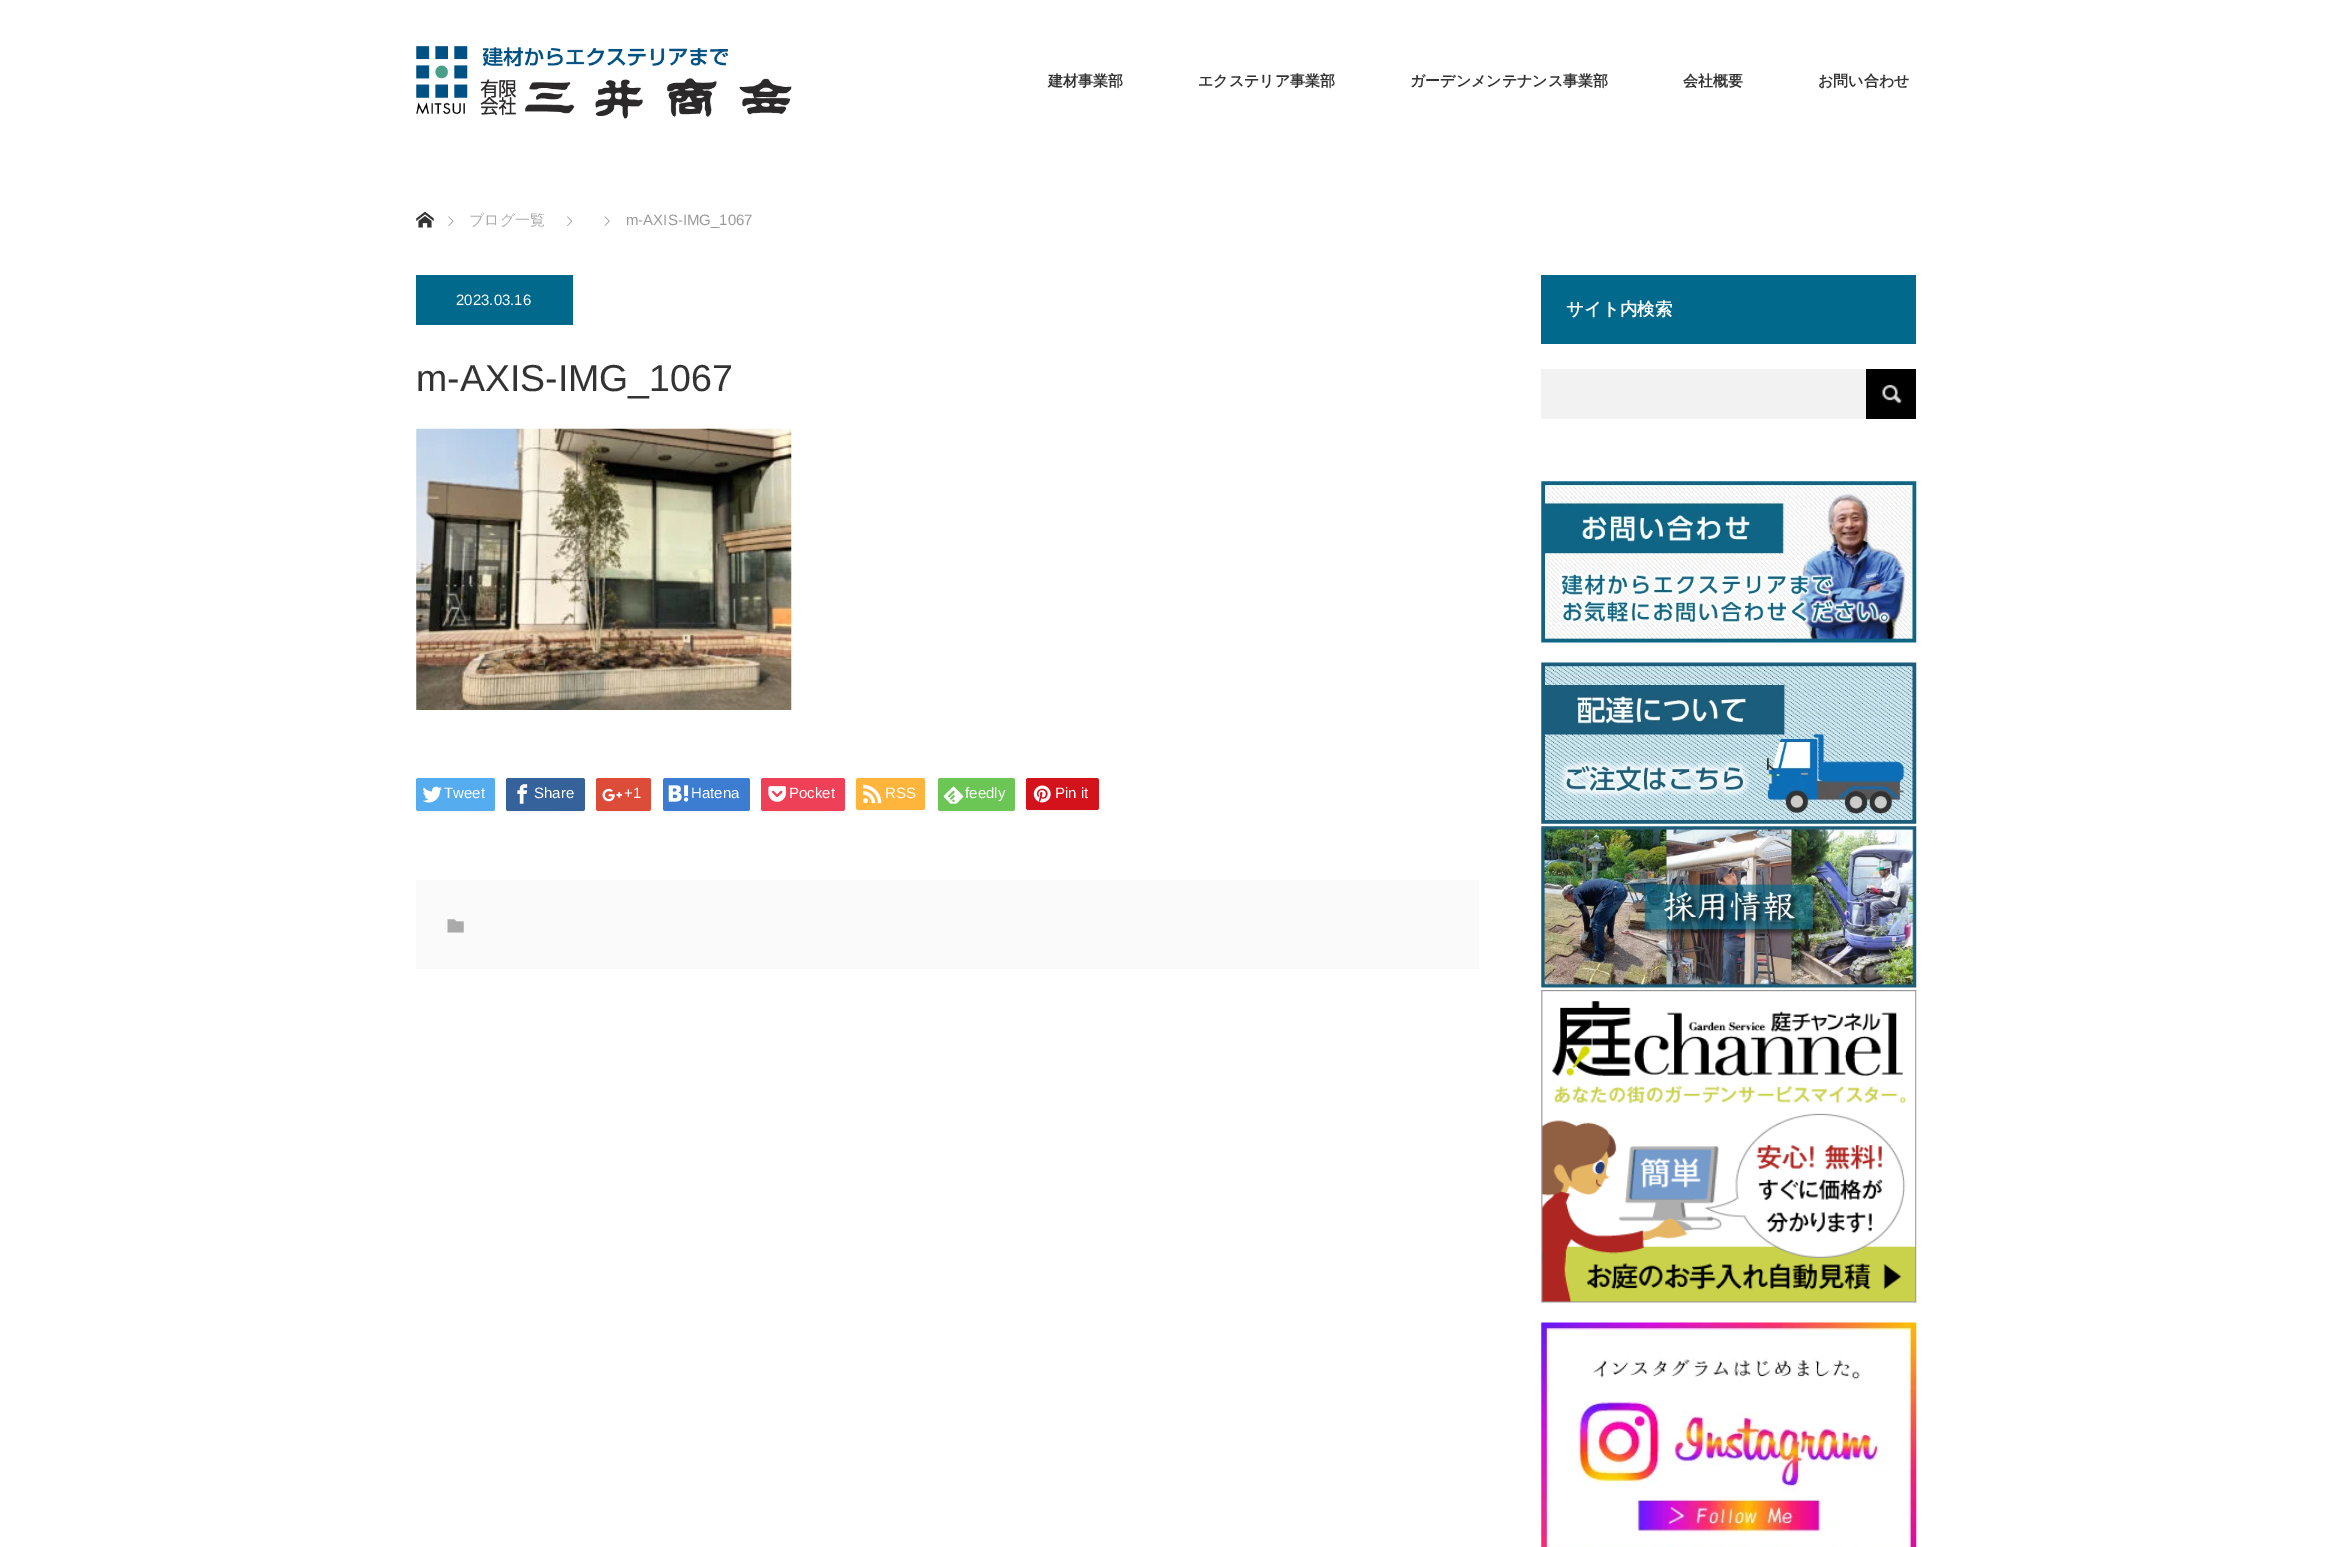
%!PS
<< /PageSize [2331 1547] >> setpagedevice
/rgb { dup -16 bitshift 255 div exch dup -8 bitshift 255 and 255 div exch 255 and 255 div setrgbcolor } def
/font { [ exch dup neg 0 0 3 -1 roll 0 0 ] selectfont } def
/text { moveto show } def
/roundrect { 5 dict begin { /r /h /w /y /x } { exch def } forall
  x r add y moveto x w add y 2 copy h add r arct x w add y h add x 1 index r arct
  x y h add x y r arct x y 2 copy exch w add exch r arct closepath end } def
/picture { 5 dict begin { /h /w /y /x /name } { exch def } forall
  gsave x y translate w h scale
  w h 8 [w 0 0 h 0 0] name (r) file false 3 colorimage grestore end } def
0 1547 translate 1 -1 scale
4 setmiterlimit
/s1 { /WenQuanYiZenHei-Bold 15 font 16#333333 rgb } def
/s2 { /WenQuanYiZenHei-Medium 15 font 16#AAAAAA rgb } def
/s3 { /LiberationSans-Regular 15 font 16#999999 rgb } def
/s4 { /LiberationSans-Regular 15 font 16#FFFFFF rgb } def
/s5 { /LiberationSans-Regular 37.5 font 16#333333 rgb } def
/s6 { /WenQuanYiZenHei-Bold 17.5 font 16#FFFFFF rgb } def
16#FFFFFF rgb
0 0 2331 1547 rectfill
(pic1.raw) 416 46 376 73 picture
s1
(建材事業部) 1048 86 text
(エクステリア事業部) 1198 86 text
(ガーデンメンテナンス事業部) 1410 86 text
(会社概要) 1683 86 text
(お問い合わせ) 1818 86 text
(pic2.raw) 416 211 18 17 picture
(pic3.raw) 448 216 6 10 picture
s2
(ブログ一覧) 469 225 text
(pic4.raw) 567 216 6 10 picture
(pic5.raw) 604 216 6 10 picture
s3
(m-AXIS-IMG_1067) 626 225 text
16#00698C rgb
416 275 157 50 rectfill
s4
(2023.03.16) 456 305 text
s5
(m-AXIS-IMG_1067) 416 391 text
(pic6.raw) 416 428 376 282 picture
16#F7F7F7 rgb
416 780 moveto 416 801 lineto 416 816 414 813 431 813 curveto 468 813 lineto 471 813 492 814 494 812 curveto 495 811 495 810 495 809 curveto 495 810 494 811 492 811 curveto 419 811 lineto 417 811 416 810 416 809 curveto closepath fill
16#55ACEE rgb
416 778 79 33 2.5 roundrect fill
(pic7.raw) 422 786 20 17 picture
s4
(Tweet) 444 798 text
16#F7F7F7 rgb
506 780 moveto 506 801 lineto 506 816 504 813 521 813 curveto 558 813 lineto 561 813 582 814 584 812 curveto 585 811 585 810 585 809 curveto 585 810 584 811 582 811 curveto 509 811 lineto 507 811 506 810 506 809 curveto closepath fill
16#35629A rgb
506 778 79 33 2.5 roundrect fill
(pic8.raw) 517 784 11 20 picture
s4
(Share) 534 798 text
16#F7F7F7 rgb
596 780 moveto 596 801 lineto 596 814 594 813 607 813 curveto 640 813 lineto 643 813 651 815 651 810 curveto 651 811 650 811 649 811 curveto 599 811 lineto 597 811 596 810 596 809 curveto closepath fill
16#DD4B39 rgb
596 778 55 33 2.5 roundrect fill
(pic9.raw) 602 788 20 14 picture
s4
(+1) 624 798 text
16#F7F7F7 rgb
663 810 moveto 663 812 664 813 666 813 curveto 748 813 lineto 749 813 750 812 750 810 curveto 750 809 lineto 750 810 lineto 748 811 lineto 665 811 lineto closepath fill
16#3C7DD1 rgb
663 778 87 33 2.5 roundrect fill
(pic10.raw) 668 785 21 17 picture
s4
(Hatena) 691 798 text
16#F7F7F7 rgb
761 780 moveto 761 801 lineto 761 816 759 813 777 813 curveto 829 813 lineto 836 813 845 817 845 809 curveto 845 810 844 811 842 811 curveto 764 811 lineto 762 811 761 810 761 809 curveto closepath fill
16#EE4056 rgb
761 778 84 33 2.5 roundrect fill
(pic11.raw) 768 786 18 16 picture
s4
(Pocket) 789 798 text
16#F7F7F7 rgb
856 780 moveto 856 795 lineto 856 813 852 811 869 811 curveto 912 811 lineto 916 811 925 814 925 808 curveto 925 809 924 810 922 810 curveto 859 810 lineto 857 810 856 809 856 808 curveto closepath fill
16#FFB53C rgb
856 778 69 32 2.5 roundrect fill
(pic12.raw) 863 784 19 20 picture
s4
(RSS) 885 798 text
16#F7F7F7 rgb
938 810 moveto 938 815 947 813 952 813 curveto 1000 813 lineto 1007 813 1015 816 1015 809 curveto 1015 810 lineto 1013 811 lineto 939 811 lineto closepath fill
16#6CC655 rgb
938 778 77 33 2.5 roundrect fill
(pic13.raw) 943 786 21 18 picture
s4
(feedly) 965 798 text
16#F7F7F7 rgb
1026 780 moveto 1026 800 lineto 1026 814 1024 811 1040 811 curveto 1085 811 lineto 1101 811 1099 814 1099 800 curveto 1099 780 lineto 1099 808 lineto 1099 809 1098 810 1096 810 curveto 1029 810 lineto 1027 810 1026 809 1026 808 curveto closepath fill
16#D4121C rgb
1026 778 73 32 2.5 roundrect fill
(pic14.raw) 1033 785 18 18 picture
s4
(Pin it) 1055 798 text
16#FAFAFA rgb
416 880 1063 89 rectfill
(pic15.raw) 447 919 17 14 picture
16#00698C rgb
1541 275 375 69 rectfill
s6
(サイト内検索) 1566 315 text
16#F2F2F2 rgb
1541 369 325 50 rectfill
16#000000 rgb
1866 369 50 50 rectfill
(pic16.raw) 1882 384 20 20 picture
(pic17.raw) 1541 481 376 162 picture
(pic18.raw) 1541 662 376 162 picture
(pic19.raw) 1541 826 376 162 picture
(pic20.raw) 1541 990 376 313 picture
(pic21.raw) 1541 1322 376 225 picture
showpage
